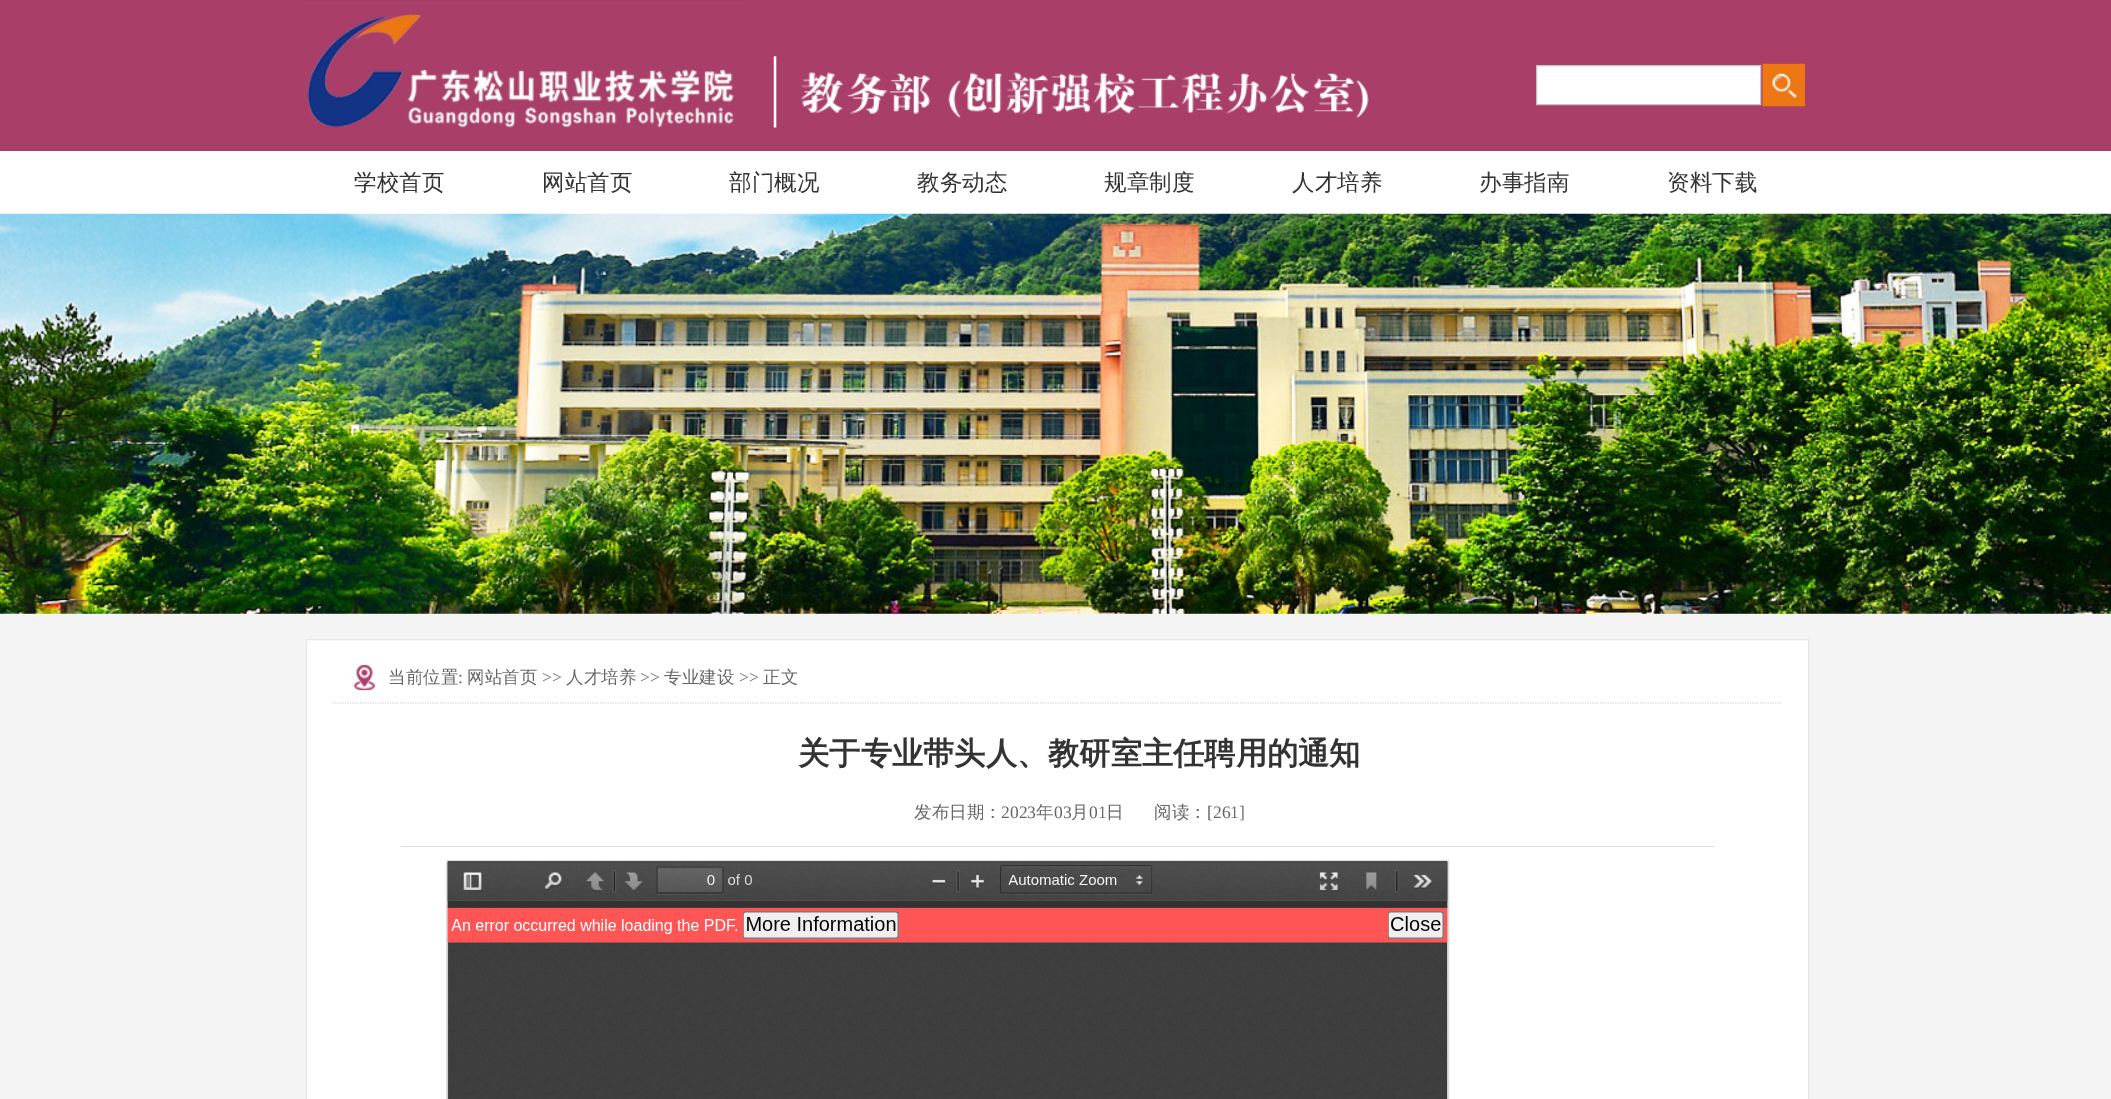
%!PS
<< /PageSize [2111 1099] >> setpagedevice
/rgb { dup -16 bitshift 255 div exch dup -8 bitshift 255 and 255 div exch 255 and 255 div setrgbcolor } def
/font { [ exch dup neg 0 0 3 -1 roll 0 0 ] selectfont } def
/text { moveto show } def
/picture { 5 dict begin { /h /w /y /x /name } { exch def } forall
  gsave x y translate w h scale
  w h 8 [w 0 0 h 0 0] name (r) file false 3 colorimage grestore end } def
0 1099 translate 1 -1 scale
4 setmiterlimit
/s1 { /WenQuanYiZenHei-Medium 22.5 font 16#333333 rgb } def
/s2 { /WenQuanYiZenHei-Medium 17.5 font 16#666666 rgb } def
/s3 { /LiberationSerif-Regular 17.5 font 16#666666 rgb } def
/s4 { /WenQuanYiZenHei-Bold 31.25 font 16#333333 rgb } def
16#F4F4F4 rgb
0 0 2111 1099 rectfill
16#A93E68 rgb
0 0 2111 151 rectfill
(pic1.raw) 307 2 1062 126 picture
16#FFFFFF rgb
1536.5 65.5 moveto 1760.5 65.5 lineto 1760.5 104.5 lineto 1536.5 104.5 lineto closepath gsave fill grestore
16#C4C4C4 rgb
stroke
(pic2.raw) 1762 63 43 44 picture
16#FFFFFF rgb
0 151 2111 63 rectfill
s1
(学校首页) 354 190 text
(网站首页) 542 190 text
(部门概况) 729 190 text
(教务动态) 917 190 text
(规章制度) 1104 190 text
(人才培养) 1292 190 text
(办事指南) 1479 190 text
(资料下载) 1667 190 text
(pic3.raw) 0 213 2111 401 picture
16#FFFFFF rgb
306.5 639.5 moveto 1808.5 639.5 lineto 1808.5 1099.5 lineto 306.5 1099.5 lineto closepath gsave fill grestore
16#E7E7E7 rgb
stroke
(pic4.raw) 353 664 23 27 picture
16#DEDEDE rgb
1.2 setlinewidth
[1.25 1.25] 0 setdash
332.5 703 moveto 1782.5 703 lineto stroke
s2
(当前位置) 388 683 text
s3
(:) 458 683 text
s2
(网站首页) 467 683 text
s3
(>>) 542 683 text
s2
(人才培养) 566 683 text
s3
(>>) 640 683 text
s2
(专业建设) 664 683 text
s3
(>>) 739 683 text
s2
(正文) 763 683 text
s4
(关于专业带头人、教研室主任聘用的通知) 798 764 text
16#DBDEE1 rgb
401 846 1313 1 rectfill
s2
(发布日期：) 914 818 text
s3
(2023) 1001 818 text
s2
(年) 1036 818 text
s3
(03) 1054 818 text
s2
(月) 1071 818 text
s3
(01) 1089 818 text
s2
(日) 1106 818 text
(阅读：) 1154 818 text
s3
([261]) 1207 818 text
16#DDDDDD rgb
1 setlinewidth
[] 0 setdash
446.5 860.5 1002 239 rectstroke
(pic5.raw) 447 861 1001 238 picture
showpage
